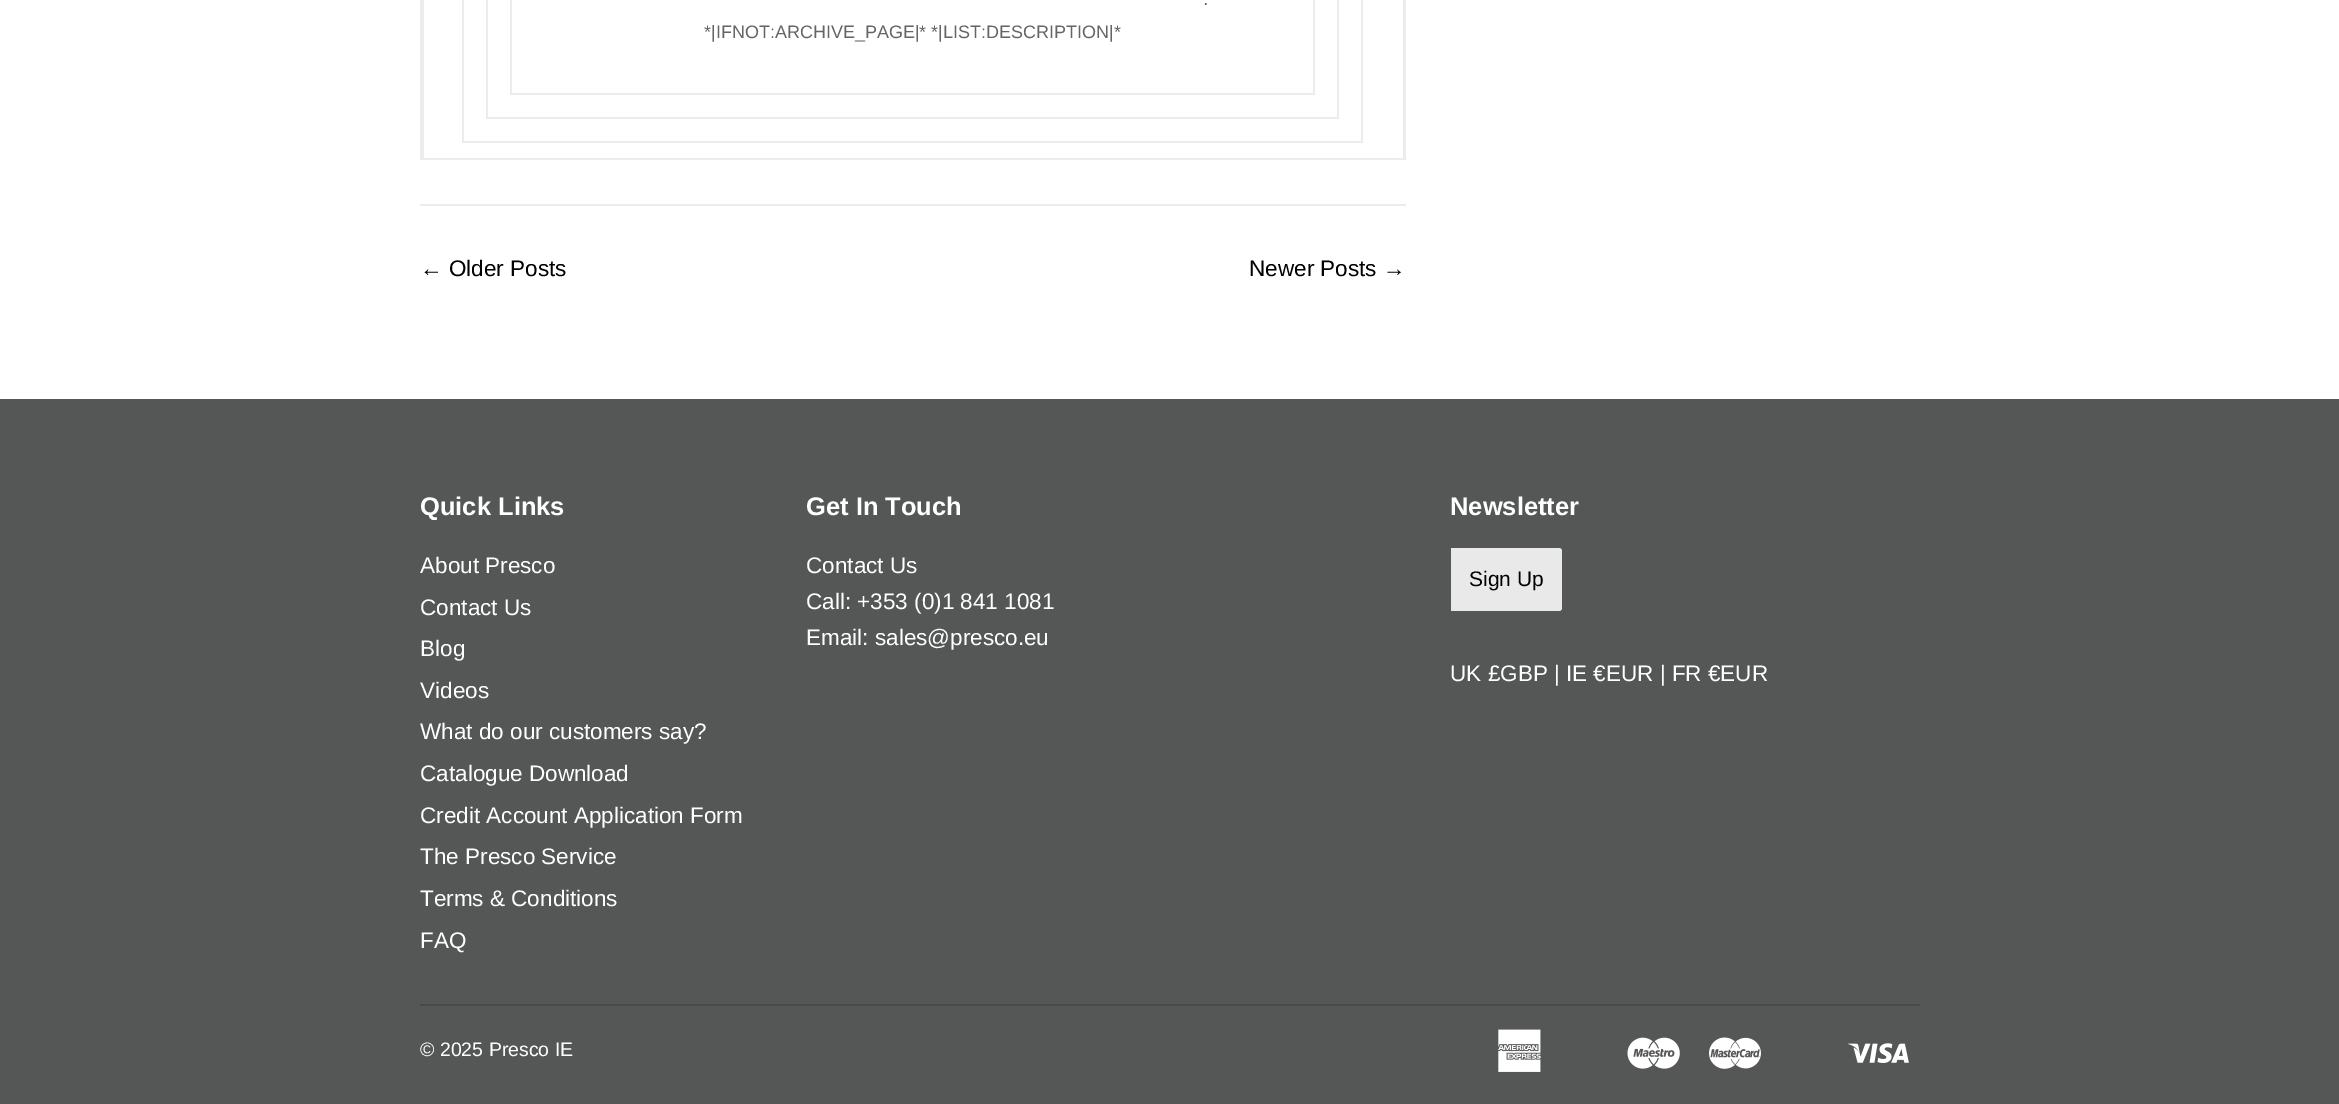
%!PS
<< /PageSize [2339 1104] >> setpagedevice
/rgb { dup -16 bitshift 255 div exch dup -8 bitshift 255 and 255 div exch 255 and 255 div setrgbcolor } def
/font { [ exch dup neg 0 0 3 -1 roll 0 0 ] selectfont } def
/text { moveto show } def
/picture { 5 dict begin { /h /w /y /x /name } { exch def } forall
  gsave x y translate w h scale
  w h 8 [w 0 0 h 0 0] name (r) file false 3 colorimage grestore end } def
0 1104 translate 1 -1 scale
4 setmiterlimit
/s1 { /LiberationSans-Italic 18 font 16#656565 rgb } def
/s2 { /LiberationSans-Regular 18 font 16#656565 rgb } def
/s3 { /LiberationSans-Regular 22.5 font 16#000000 rgb } def
/s4 { /LiberationSans-Bold 25.5 font 16#FFFFFF rgb } def
/s5 { /LiberationSans-Regular 22.5 font 16#FFFFFF rgb } def
/s6 { /LiberationSans-Regular 21 font 16#000000 rgb } def
/s7 { /LiberationSans-Regular 19.5 font 16#FFFFFF rgb } def
16#FFFFFF rgb
0 0 2339 1104 rectfill
16#ECECEC rgb
1403 0 3 159 rectfill
422 0 2 159 rectfill
420 158 986 2 rectfill
420 0 2 159 rectfill
1361 0 2 143 rectfill
462 141 900 2 rectfill
462 0 2 143 rectfill
1337 0 2 119 rectfill
486 117 852 2 rectfill
486 0 2 119 rectfill
1313 0 2 95 rectfill
510 93 804 2 rectfill
510 0 2 95 rectfill
s1
(.) 1204 5 text
s2
(*|IFNOT:ARCHIVE_PAGE|* *|LIST:DESCRIPTION|*) 704 38 text
16#ECECEC rgb
420 204 986 2 rectfill
s3
(← Older Posts) 420 276 text
(Newer Posts →) 1249 276 text
16#555757 rgb
0 399 2339 705 rectfill
s4
(Quick Links) 420 515 text
s5
(About Presco) 420 573 text
(Contact Us) 420 615 text
(Blog) 420 656 text
(Videos) 420 698 text
(What do our customers say?) 420 739 text
(Catalogue Download) 420 781 text
(Credit Account Application Form) 420 823 text
(The Presco Service) 420 864 text
(Terms & Conditions) 420 906 text
(FAQ) 420 948 text
s4
(Get In Touch) 806 515 text
s5
(Contact Us) 806 573 text
(Call: +353 \(0\)1 841 1081) 806 609 text
(Email: sales@presco.eu) 806 645 text
s4
(Newsletter) 1450 515 text
16#E9E9E9 rgb
1451 548 moveto 1559 548 lineto 1560.5 548 1562 549.5 1562 551 curveto 1562 608 lineto 1562 609.5 1560.5 611 1559 611 curveto 1451 611 lineto closepath fill
s6
(Sign Up) 1469 586 text
s5
(UK £GBP | IE €EUR | FR €EUR) 1450 681 text
16#484A4A rgb
420 1004 1500 2 rectfill
s7
(© 2025 Presco IE) 420 1056 text
(pic1.raw) 1498 1029 43 43 picture
(pic2.raw) 1627 1037 53 32 picture
(pic3.raw) 1709 1037 52 32 picture
(pic4.raw) 1848 1043 61 20 picture
showpage
